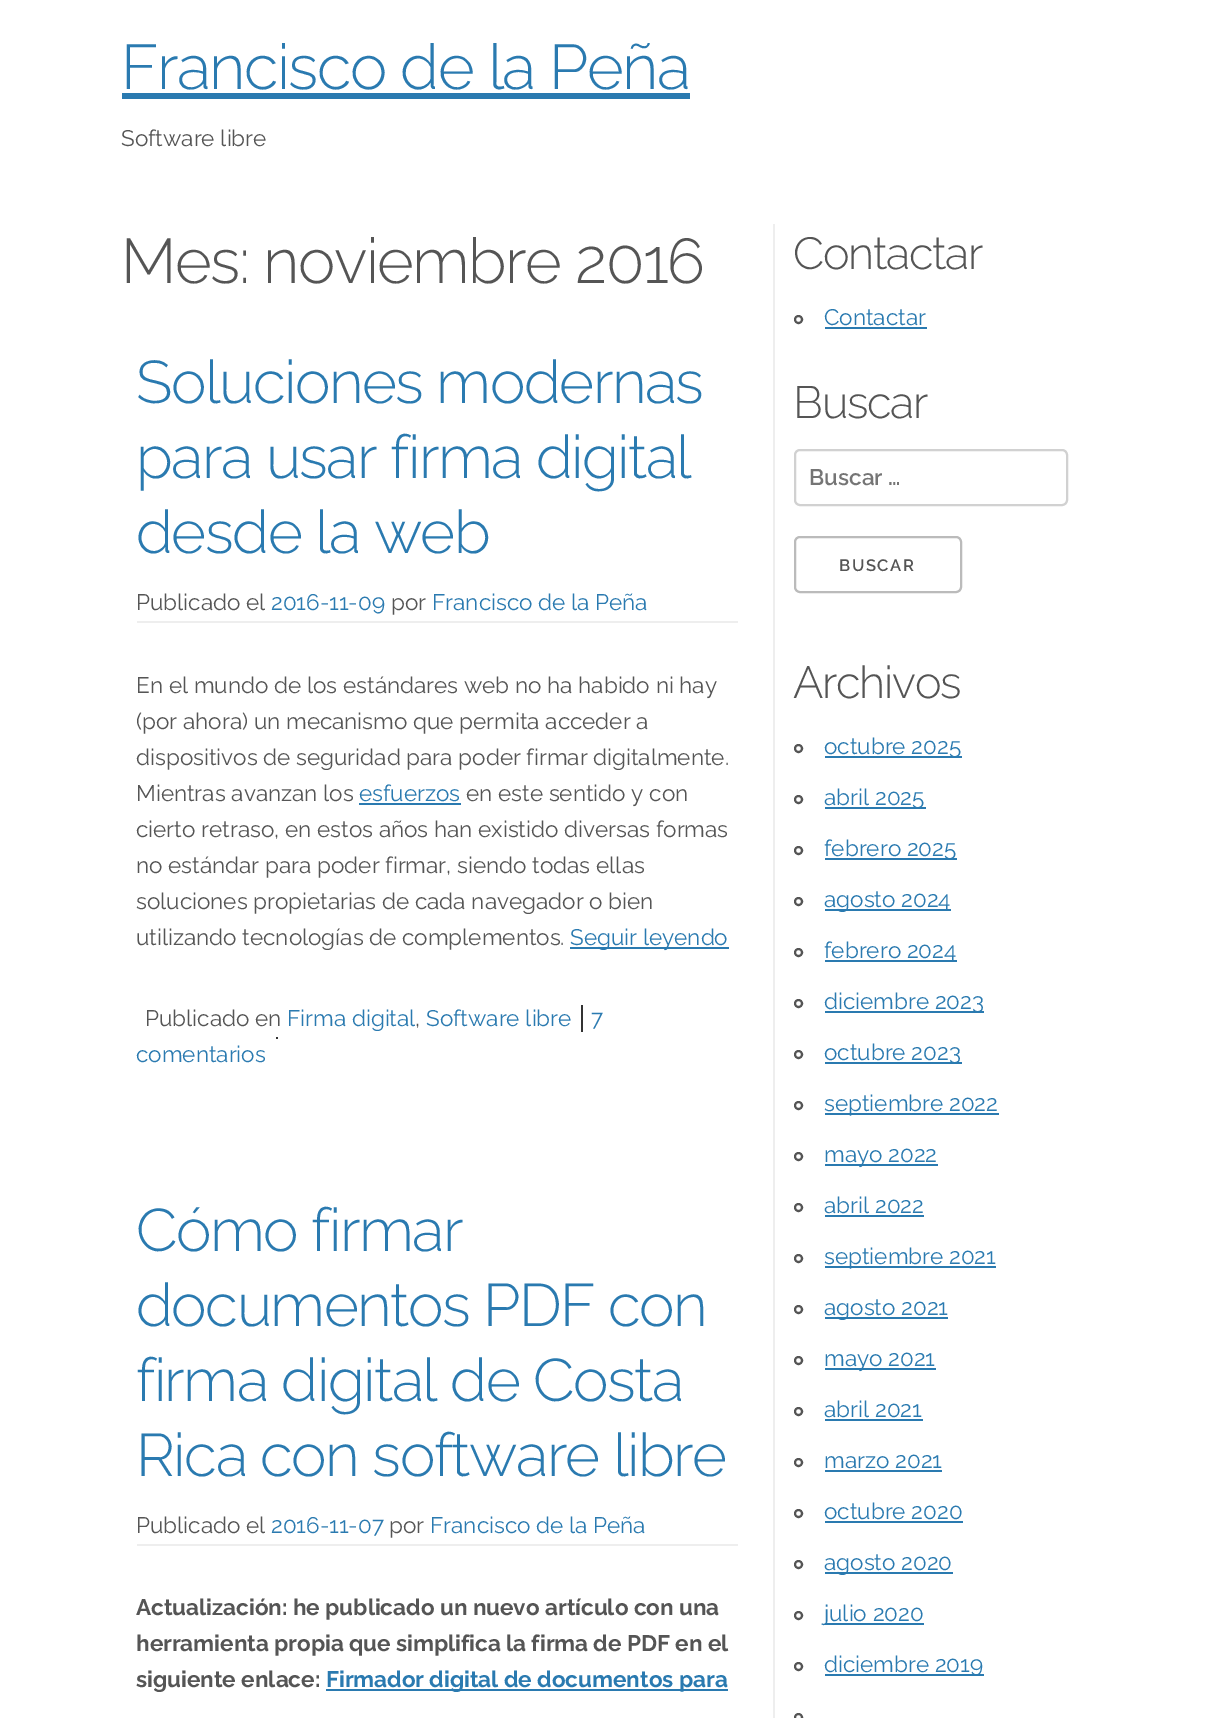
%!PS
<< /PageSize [1209 1718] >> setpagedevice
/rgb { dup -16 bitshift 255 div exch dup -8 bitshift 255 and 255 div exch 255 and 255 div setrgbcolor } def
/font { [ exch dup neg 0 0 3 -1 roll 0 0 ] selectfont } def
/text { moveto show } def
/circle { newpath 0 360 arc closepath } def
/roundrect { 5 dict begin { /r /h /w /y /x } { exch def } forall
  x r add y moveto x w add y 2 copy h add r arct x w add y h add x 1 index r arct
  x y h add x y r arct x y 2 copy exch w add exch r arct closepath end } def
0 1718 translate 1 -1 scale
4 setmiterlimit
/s1 { /Raleway-Regular 22.5 font 16#555555 rgb } def
/s2 { /Raleway-Regular 22.5 font 16#2A7AB0 rgb } def
/s3 { /Raleway-Bold 22.5 font 16#555555 rgb } def
/s4 { /Raleway-Bold 22.5 font 16#2A7AB0 rgb } def
/s5 { /Raleway-SemiBold 22.5 font 16#757575 rgb } def
16#FFFFFF rgb
0 0 1209 1718 rectfill
/Raleway-Light 63 font
16#2A7AB0 rgb
121 89 moveto -1.5 0 (Francisco de la Peña) ashow
122 93 568 6 rectfill
s1
(Software libre) 121 146 text
/Raleway-Light 63 font
121 283 moveto -1.5 0 (Mes: noviembre 2016) ashow
/Raleway-Light 60 font
16#2A7AB0 rgb
136 403 moveto -1.5 0 (Soluciones modernas) ashow
136 478 moveto -1.5 0 (para usar firma digital) ashow
136 553 moveto -1.5 0 (desde la web) ashow
16#EEEEEE rgb
137 621 601 2 rectfill
s1
(Publicado el) 136 610 text
s2
(2016-11-09) 271 610 text
s1
(por) 391 610 text
s2
(Francisco de la Peña) 432 610 text
s1
(En el mundo de los estándares web no ha habido ni hay) 136 693 text
(\(por ahora\) un mecanismo que permita acceder a) 136 729 text
(dispositivos de seguridad para poder firmar digitalmente.) 136 765 text
(Mientras avanzan los) 136 801 text
s2
(esfuerzos) 359 801 text
359 803 102 2 rectfill
s1
(en este sentido y con) 466 801 text
(cierto retraso, en estos años han existido diversas formas) 136 837 text
(no estándar para poder firmar, siendo todas ellas) 136 873 text
(soluciones propietarias de cada navegador o bien) 136 909 text
(utilizando tecnologías de complementos.) 136 945 text
16#2A7AB0 rgb
570 947 159 2 rectfill
(Seguir leyendo) 570 945 text
s1
(Publicado en) 145 1026 text
s2
(Firma digital) 287 1026 text
s1
(,) 415 1026 text
s2
(Software libre) 426 1026 text
16#333333 rgb
581 1005 2 27 rectfill
s2
(7) 591 1026 text
(comentarios) 136 1062 text
16#333333 rgb
276 1037 2 2 rectfill
/Raleway-Light 60 font
16#2A7AB0 rgb
136 1251 moveto -1.5 0 (Cómo firmar) ashow
136 1326 moveto -1.5 0 (documentos PDF con) ashow
136 1401 moveto -1.5 0 (firma digital de Costa) ashow
136 1476 moveto -1.5 0 (Rica con software libre) ashow
16#EEEEEE rgb
137 1544 601 2 rectfill
s1
(Publicado el) 136 1533 text
s2
(2016-11-07) 271 1533 text
s1
(por) 389 1533 text
s2
(Francisco de la Peña) 430 1533 text
s3
(Actualización: he publicado un nuevo artículo con una) 136 1615 text
(herramienta propia que simplifica la firma de PDF en el) 136 1651 text
(siguiente enlace:) 136 1687 text
16#2A7AB0 rgb
326 1689 402 2 rectfill
(Firmador digital de documentos para) 326 1687 text
16#EEEEEE rgb
773 224 2 1494 rectfill
/Raleway-Light 45 font
16#555555 rgb
793 269 moveto -1.25 0 (Contactar) ashow
2 setlinewidth
798.5 319.5 3.5 circle stroke
s2
(Contactar) 824 325 text
825 327 102 2 rectfill
/Raleway-Light 45 font
16#555555 rgb
793 418 moveto -1.25 0 (Buscar) ashow
16#D1D1D1 rgb
795 450 272 55 5 roundrect stroke
s5
(Buscar …) 809 485 text
16#BBBBBB rgb
795 537 166 55 5 roundrect stroke
/Raleway-SemiBold 16.5 font
16#555555 rgb
839 571 moveto 1.5 0 (BUSCAR) ashow
/Raleway-Light 45 font
793 698 moveto -1.25 0 (Archivos) ashow
798.5 748.5 3.5 circle stroke
16#2A7AB0 rgb
825 756 137 2 rectfill
s2
(octubre 2025) 824 754 text
16#555555 rgb
798.5 799.5 3.5 circle stroke
16#2A7AB0 rgb
825 807 101 2 rectfill
(abril 2025) 824 805 text
16#555555 rgb
798.5 850.5 3.5 circle stroke
16#2A7AB0 rgb
825 858 132 2 rectfill
(febrero 2025) 824 856 text
16#555555 rgb
798.5 901.5 3.5 circle stroke
16#2A7AB0 rgb
825 909 126 2 rectfill
(agosto 2024) 824 907 text
16#555555 rgb
798.5 952.5 3.5 circle stroke
16#2A7AB0 rgb
825 960 132 2 rectfill
(febrero 2024) 824 958 text
16#555555 rgb
798.5 1003.5 3.5 circle stroke
16#2A7AB0 rgb
825 1011 159 2 rectfill
(diciembre 2023) 824 1009 text
16#555555 rgb
798.5 1054.5 3.5 circle stroke
16#2A7AB0 rgb
825 1062 137 2 rectfill
(octubre 2023) 824 1060 text
16#555555 rgb
798.5 1105.5 3.5 circle stroke
16#2A7AB0 rgb
825 1113 174 2 rectfill
(septiembre 2022) 824 1111 text
16#555555 rgb
798.5 1156.5 3.5 circle stroke
16#2A7AB0 rgb
825 1164 113 2 rectfill
(mayo 2022) 824 1162 text
16#555555 rgb
798.5 1207.5 3.5 circle stroke
s2
(abril 2022) 824 1213 text
825 1215 99 2 rectfill
16#555555 rgb
798.5 1258.5 3.5 circle stroke
16#2A7AB0 rgb
825 1266 171 2 rectfill
(septiembre 2021) 824 1264 text
16#555555 rgb
798.5 1309.5 3.5 circle stroke
16#2A7AB0 rgb
825 1317 123 2 rectfill
(agosto 2021) 824 1315 text
16#555555 rgb
798.5 1360.5 3.5 circle stroke
16#2A7AB0 rgb
825 1368 111 2 rectfill
(mayo 2021) 824 1366 text
16#555555 rgb
798.5 1411.5 3.5 circle stroke
s2
(abril 2021) 824 1417 text
825 1419 98 2 rectfill
16#555555 rgb
798.5 1462.5 3.5 circle stroke
s2
(marzo 2021) 824 1468 text
825 1470 117 2 rectfill
16#555555 rgb
798.5 1513.5 3.5 circle stroke
s2
(octubre 2020) 824 1519 text
825 1521 138 2 rectfill
16#555555 rgb
798.5 1564.5 3.5 circle stroke
16#2A7AB0 rgb
825 1572 128 2 rectfill
(agosto 2020) 824 1570 text
16#555555 rgb
798.5 1615.5 3.5 circle stroke
16#2A7AB0 rgb
825 1623 99 2 rectfill
(julio 2020) 824 1621 text
16#555555 rgb
798.5 1666.5 3.5 circle stroke
16#2A7AB0 rgb
825 1674 159 2 rectfill
(diciembre 2019) 824 1672 text
16#555555 rgb
798.5 1717.5 3.5 circle stroke
showpage
